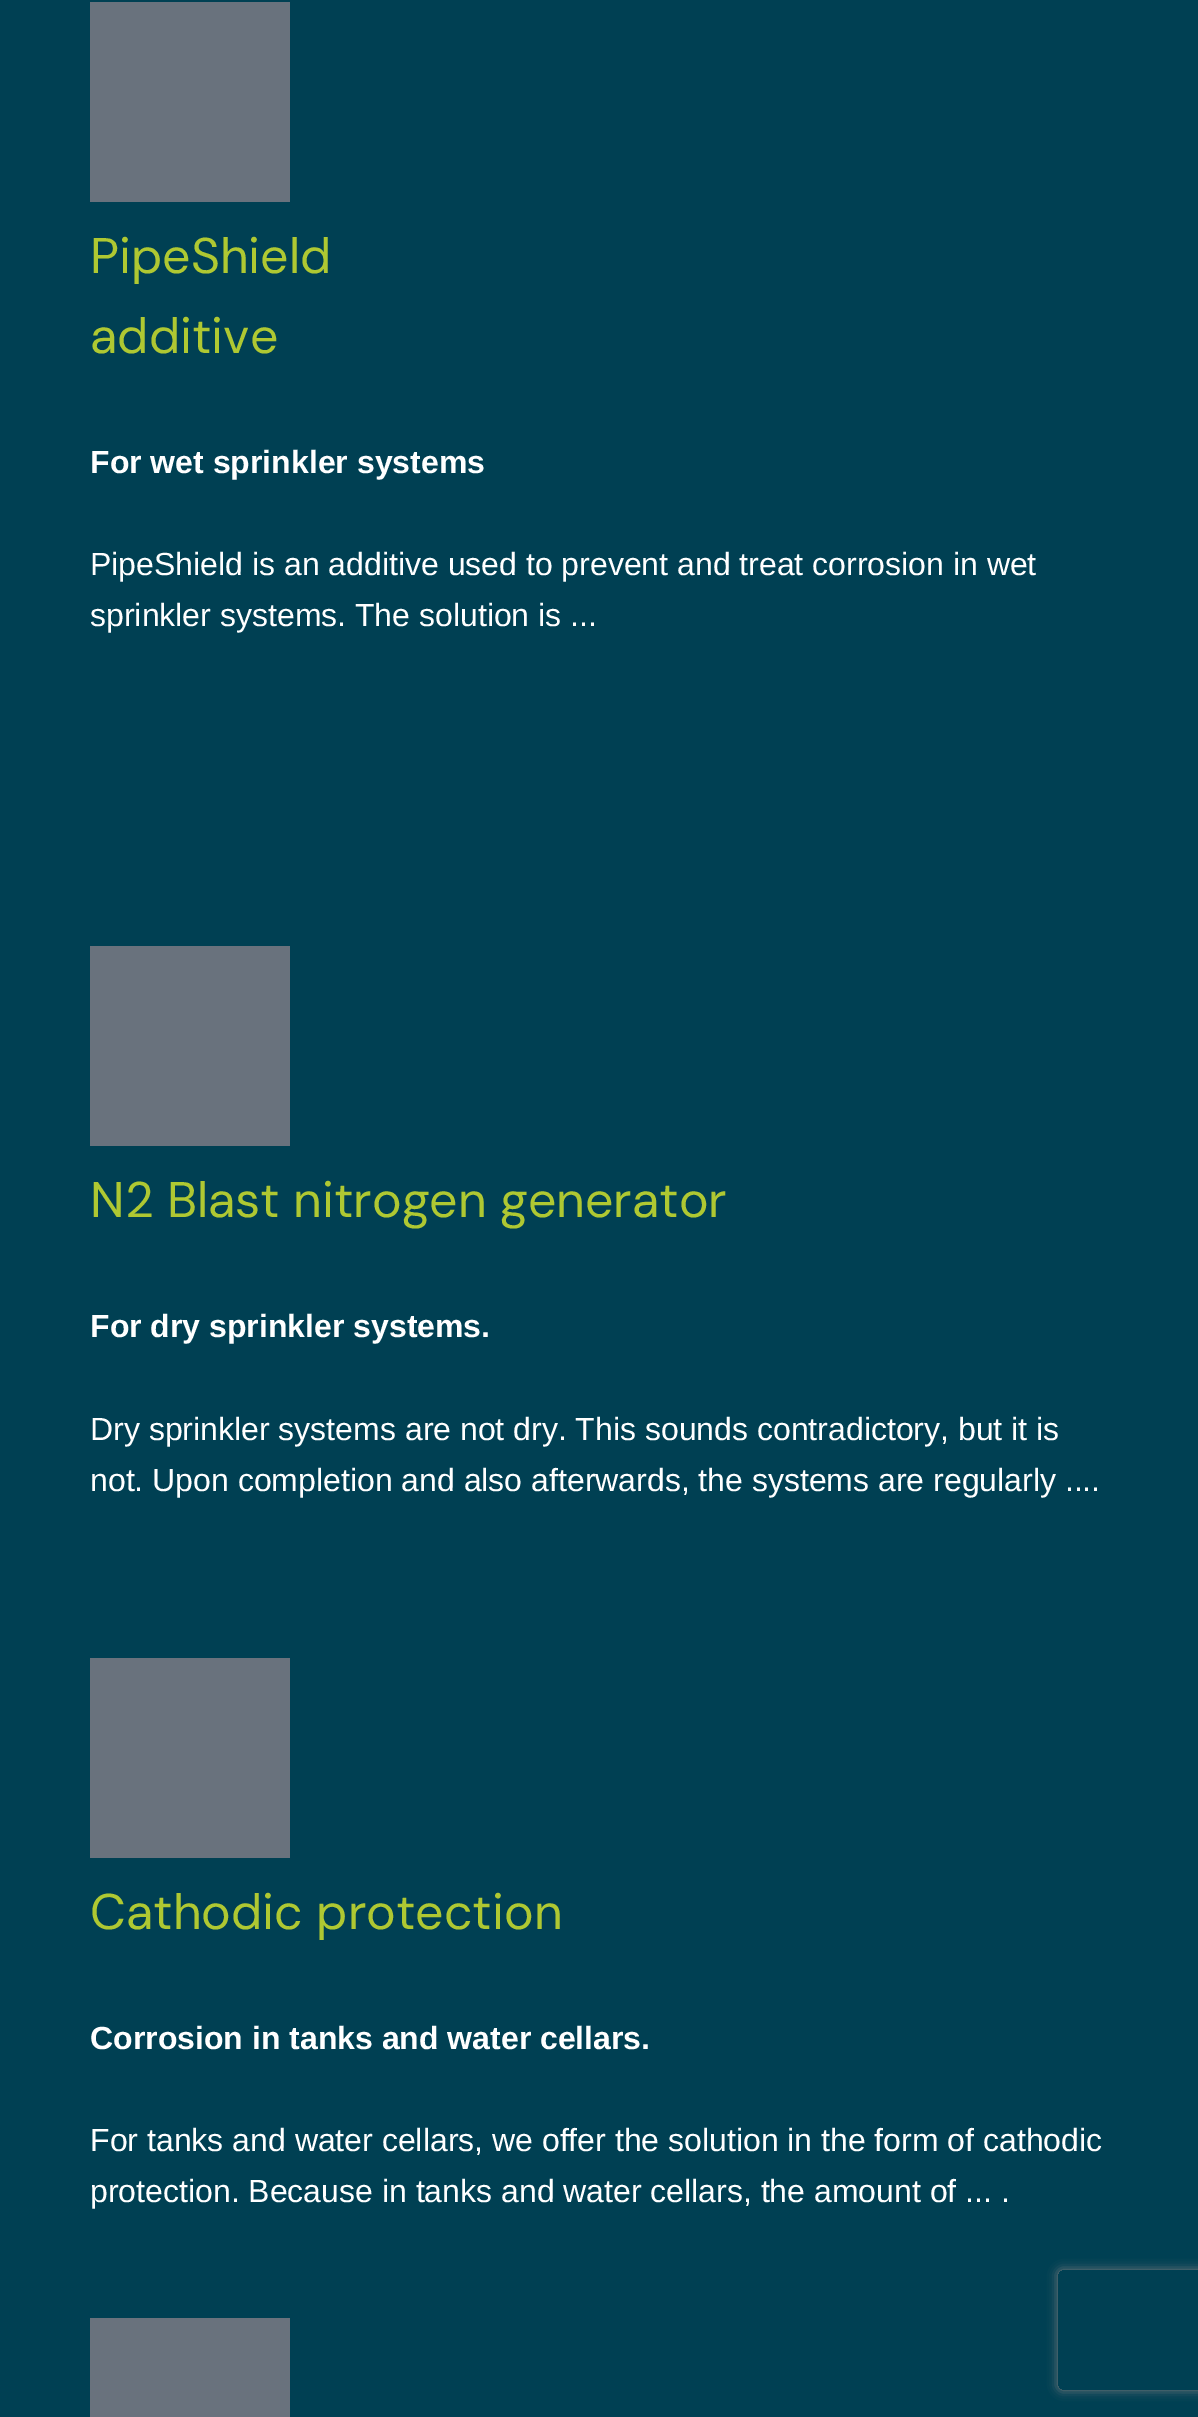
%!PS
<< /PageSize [1198 2417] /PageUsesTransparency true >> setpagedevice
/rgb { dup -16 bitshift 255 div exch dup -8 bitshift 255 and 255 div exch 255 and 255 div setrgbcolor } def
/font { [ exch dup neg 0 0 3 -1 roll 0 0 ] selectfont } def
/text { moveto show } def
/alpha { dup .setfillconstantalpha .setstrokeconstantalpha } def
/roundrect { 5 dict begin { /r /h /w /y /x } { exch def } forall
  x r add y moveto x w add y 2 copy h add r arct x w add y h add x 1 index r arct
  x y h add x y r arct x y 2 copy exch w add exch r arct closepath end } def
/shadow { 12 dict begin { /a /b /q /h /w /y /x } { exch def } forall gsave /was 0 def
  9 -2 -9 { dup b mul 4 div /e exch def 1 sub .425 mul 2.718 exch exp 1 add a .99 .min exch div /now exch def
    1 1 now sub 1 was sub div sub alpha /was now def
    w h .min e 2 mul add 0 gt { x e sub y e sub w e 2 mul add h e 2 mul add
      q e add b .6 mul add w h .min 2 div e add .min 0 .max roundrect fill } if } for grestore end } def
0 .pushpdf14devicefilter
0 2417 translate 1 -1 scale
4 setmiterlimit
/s1 { /DMSans-Regular 50 font 16#AFC832 rgb } def
/s2 { /LiberationSans-Bold 32 font 16#FFFFFF rgb } def
/s3 { /LiberationSans-Regular 32 font 16#FFFFFF rgb } def
16#004053 rgb
0 0 1198 2417 rectfill
16#69727D rgb
90 2 200 200 rectfill
s1
(PipeShield) 90 273 text
(additive) 90 353 text
s2
(For wet sprinkler systems) 90 473 text
s3
(PipeShield is an additive used to prevent and treat corrosion in wet) 90 575 text
(sprinkler systems. The solution is ...) 90 626 text
16#69727D rgb
90 946 200 200 rectfill
s1
(N2 Blast nitrogen generator) 90 1217 text
s2
(For dry sprinkler systems.) 90 1337 text
s3
(Dry sprinkler systems are not dry. This sounds contradictory, but it is) 90 1440 text
(not. Upon completion and also afterwards, the systems are regularly ....) 90 1491 text
16#69727D rgb
90 1658 200 200 rectfill
s1
(Cathodic protection) 90 1929 text
s2
(Corrosion in tanks and water cellars.) 90 2049 text
s3
(For tanks and water cellars, we offer the solution in the form of cathodic) 90 2151 text
(protection. Because in tanks and water cellars, the amount of ... .) 90 2202 text
16#69727D rgb
90 2318 200 99 rectfill
gsave
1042 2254 moveto 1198 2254 lineto 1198 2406 lineto 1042 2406 lineto closepath 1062 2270 moveto 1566 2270 lineto 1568 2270 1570 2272 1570 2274 curveto 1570 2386 lineto 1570 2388 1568 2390 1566 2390 curveto 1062 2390 lineto 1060 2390 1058 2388 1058 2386 curveto 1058 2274 lineto 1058 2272 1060 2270 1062 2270 curveto closepath eoclip newpath
16#808080 rgb
1058 2270 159 120 4 5 1 shadow
grestore
.poppdf14devicefilter showpage
